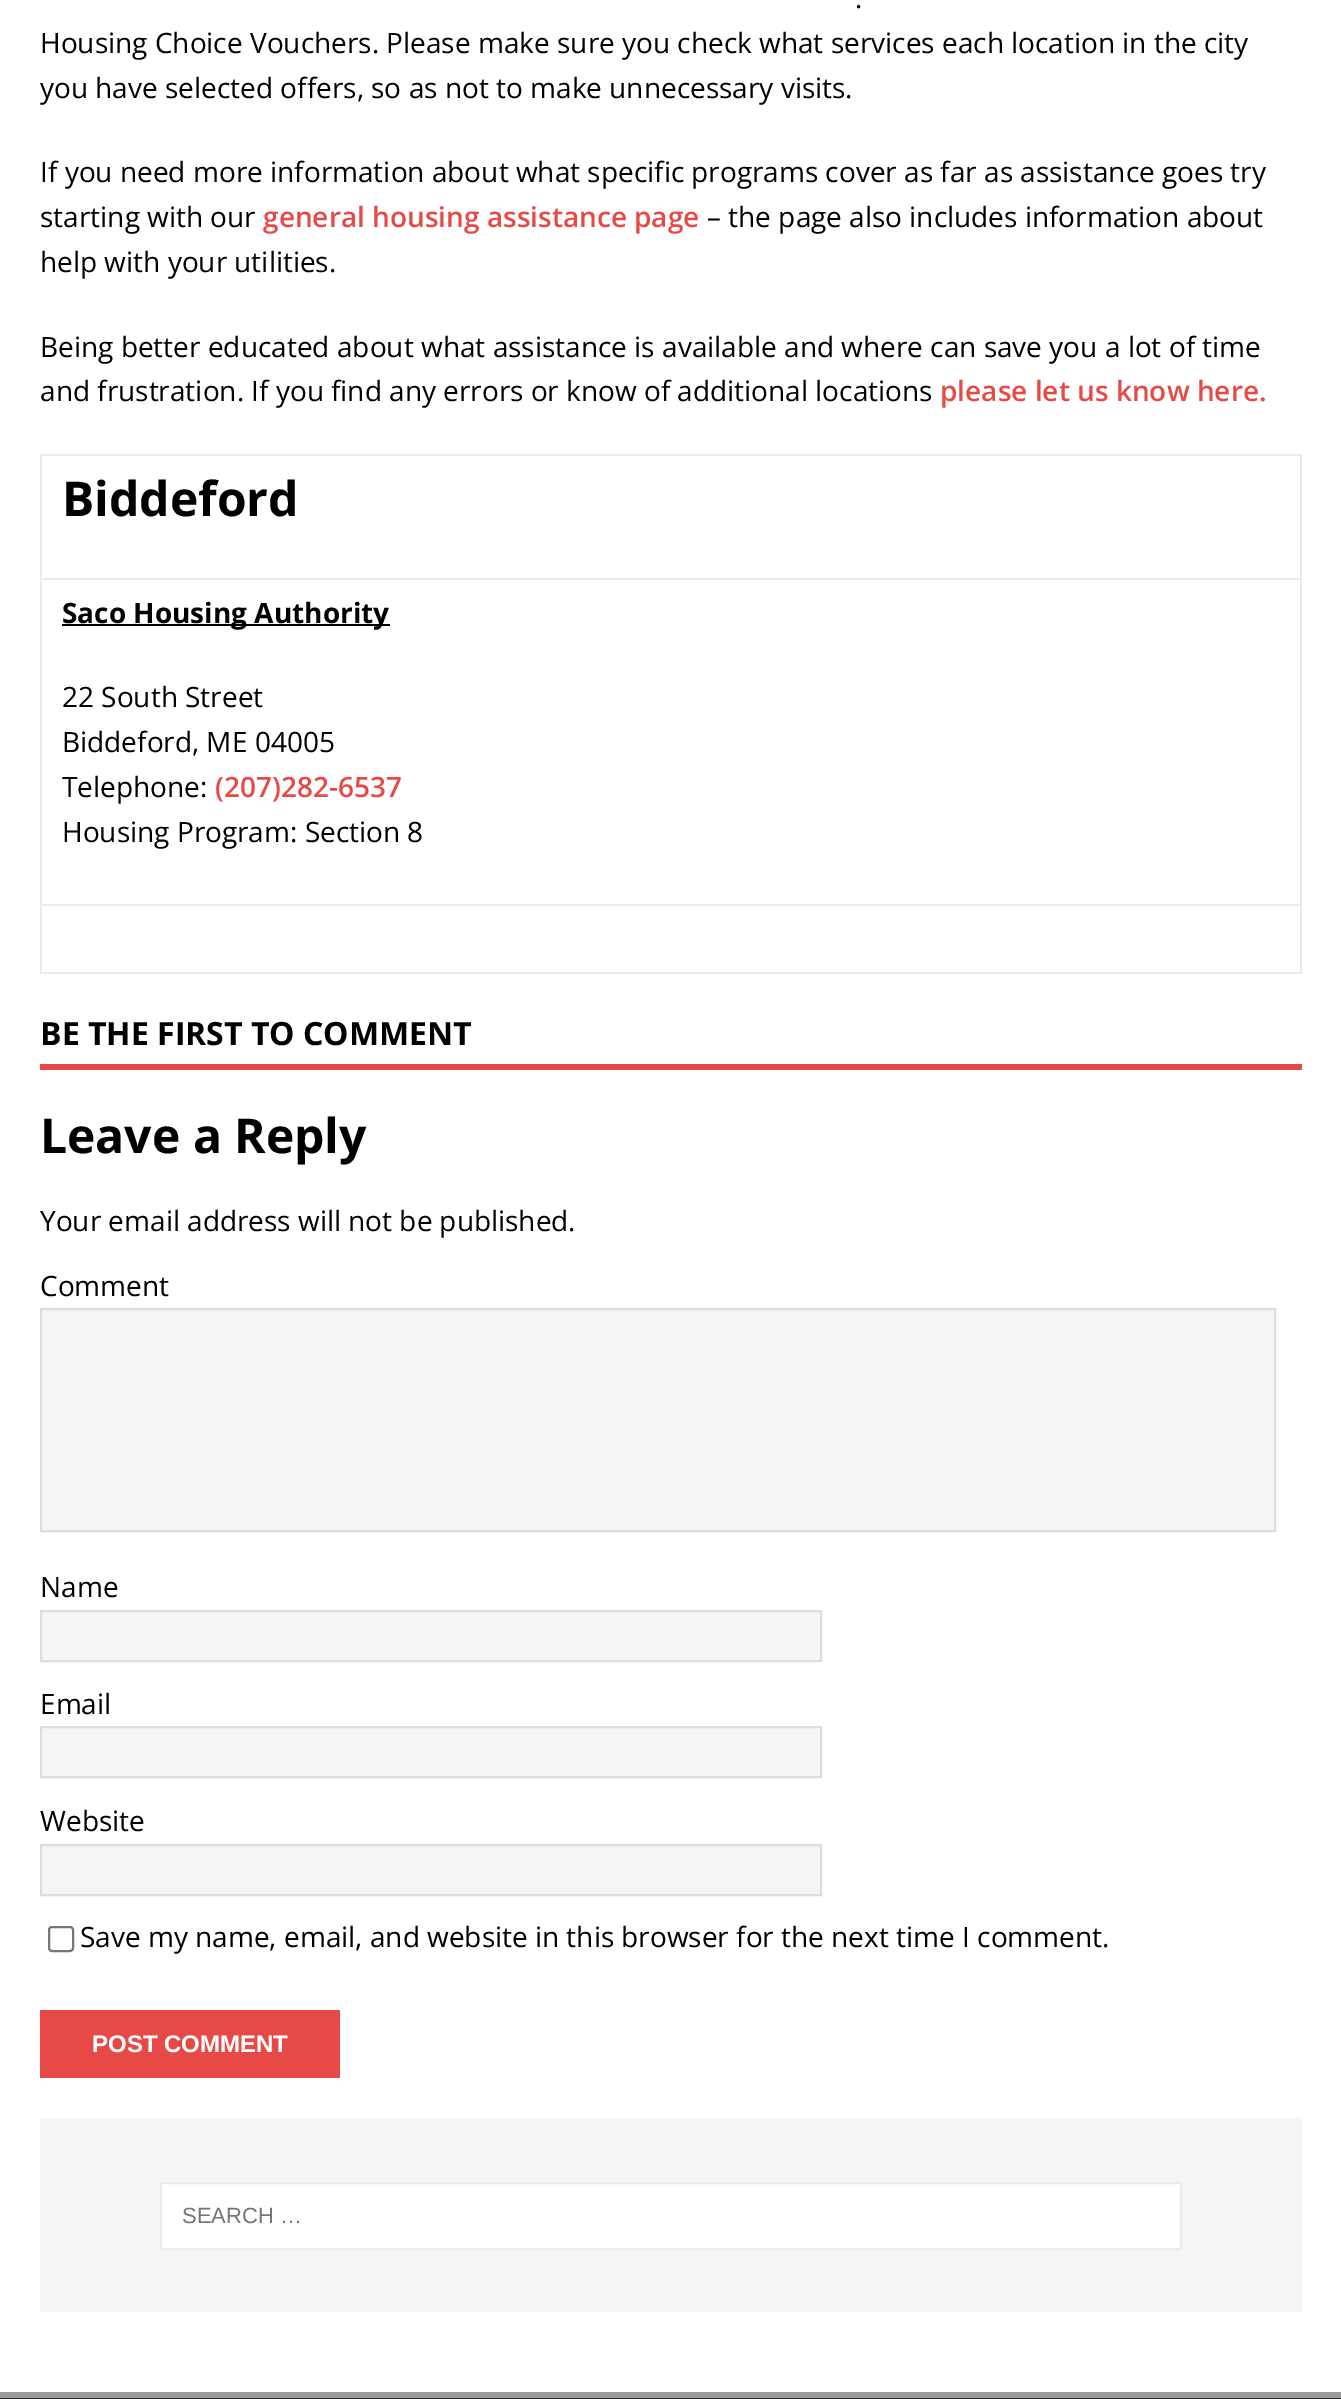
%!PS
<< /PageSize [1341 2399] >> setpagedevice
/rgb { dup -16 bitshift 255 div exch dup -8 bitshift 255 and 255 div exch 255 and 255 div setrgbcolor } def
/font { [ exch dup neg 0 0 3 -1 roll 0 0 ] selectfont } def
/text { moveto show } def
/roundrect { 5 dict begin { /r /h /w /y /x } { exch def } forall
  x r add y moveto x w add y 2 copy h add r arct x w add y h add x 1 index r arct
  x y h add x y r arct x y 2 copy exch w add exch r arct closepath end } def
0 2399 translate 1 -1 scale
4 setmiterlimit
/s1 { /OpenSans-Regular 28 font 16#000000 rgb } def
/s2 { /OpenSans-SemiBold 28 font 16#E64946 rgb } def
/s3 { /OpenSans-Bold 48 font 16#000000 rgb } def
/s4 { /OpenSans-Bold 28 font 16#000000 rgb } def
/s5 { /OpenSans-Bold 32 font 16#000000 rgb } def
/s6 { /LiberationSans-Bold 24 font 16#FFFFFF rgb } def
/s7 { /LiberationSans-Regular 22 font 16#757575 rgb } def
16#FFFFFF rgb
0 0 1341 2399 rectfill
s1
(.) 855 8 text
(Housing Choice Vouchers. Please make sure you check what services each location in the city) 40 53 text
(you have selected offers, so as not to make unnecessary visits.) 40 98 text
(If you need more information about what specific programs cover as far as assistance goes try) 40 182 text
(starting with our) 40 227 text
s2
(general housing assistance page) 263 227 text
s1
(– the page also includes information about) 707 227 text
(help with your utilities.) 40 272 text
(Being better educated about what assistance is available and where can save you a lot of time) 40 357 text
(and frustration. If you find any errors or know of additional locations) 40 401 text
s2
(please let us know here.) 940 401 text
16#EBEBEB rgb
40 454 1262 2 rectfill
40 454 2 520 rectfill
1300 454 2 520 rectfill
40 972 1262 2 rectfill
40 578 1262 2 rectfill
s3
(Biddeford) 62 516 text
16#EBEBEB rgb
40 904 1262 2 rectfill
16#000000 rgb
62 624 328 2 rectfill
s4
(Saco Housing Authority) 62 623 text
s1
(22 South Street) 62 707 text
(Biddeford, ME 04005) 62 752 text
(Telephone:) 62 797 text
s2
(\(207\)282-6537) 215 797 text
s1
(Housing Program: Section 8) 62 842 text
16#E64946 rgb
40 1064 1262 6 rectfill
s5
(BE THE FIRST TO COMMENT) 40 1045 text
s3
(Leave a Reply) 40 1153 text
s1
(Your email address will not be published.) 40 1231 text
(Comment) 40 1296 text
16#F5F5F5 rgb
41 1309 moveto 1275 1309 lineto 1275 1531 lineto 41 1531 lineto closepath gsave fill grestore
16#DDDDDD rgb
2 setlinewidth
stroke
s1
(Name) 40 1597 text
16#F5F5F5 rgb
41 1611 moveto 821 1611 lineto 821 1661 lineto 41 1661 lineto closepath gsave fill grestore
16#DDDDDD rgb
stroke
s1
(Email) 40 1714 text
16#F5F5F5 rgb
41 1727 moveto 821 1727 lineto 821 1777 lineto 41 1777 lineto closepath gsave fill grestore
16#DDDDDD rgb
stroke
s1
(Website) 40 1831 text
16#F5F5F5 rgb
41 1845 moveto 821 1845 lineto 821 1895 lineto 41 1895 lineto closepath gsave fill grestore
16#DDDDDD rgb
stroke
16#767676 rgb
49 1927 24 24 3 roundrect stroke
s1
(Save my name, email, and website in this browser for the next time I comment.) 80 1947 text
16#E64946 rgb
40 2010 300 68 rectfill
s6
(POST COMMENT) 92 2052 text
16#F5F5F5 rgb
40 2118 1262 194 rectfill
16#FFFFFF rgb
161 2183 moveto 1181 2183 lineto 1181 2249 lineto 161 2249 lineto closepath gsave fill grestore
16#EBEBEB rgb
stroke
s7
(SEARCH …) 182 2223 text
16#2A2A2A rgb
0 2398 1341 1 rectfill
16#999999 rgb
0 2392 1341 6 rectfill
showpage
